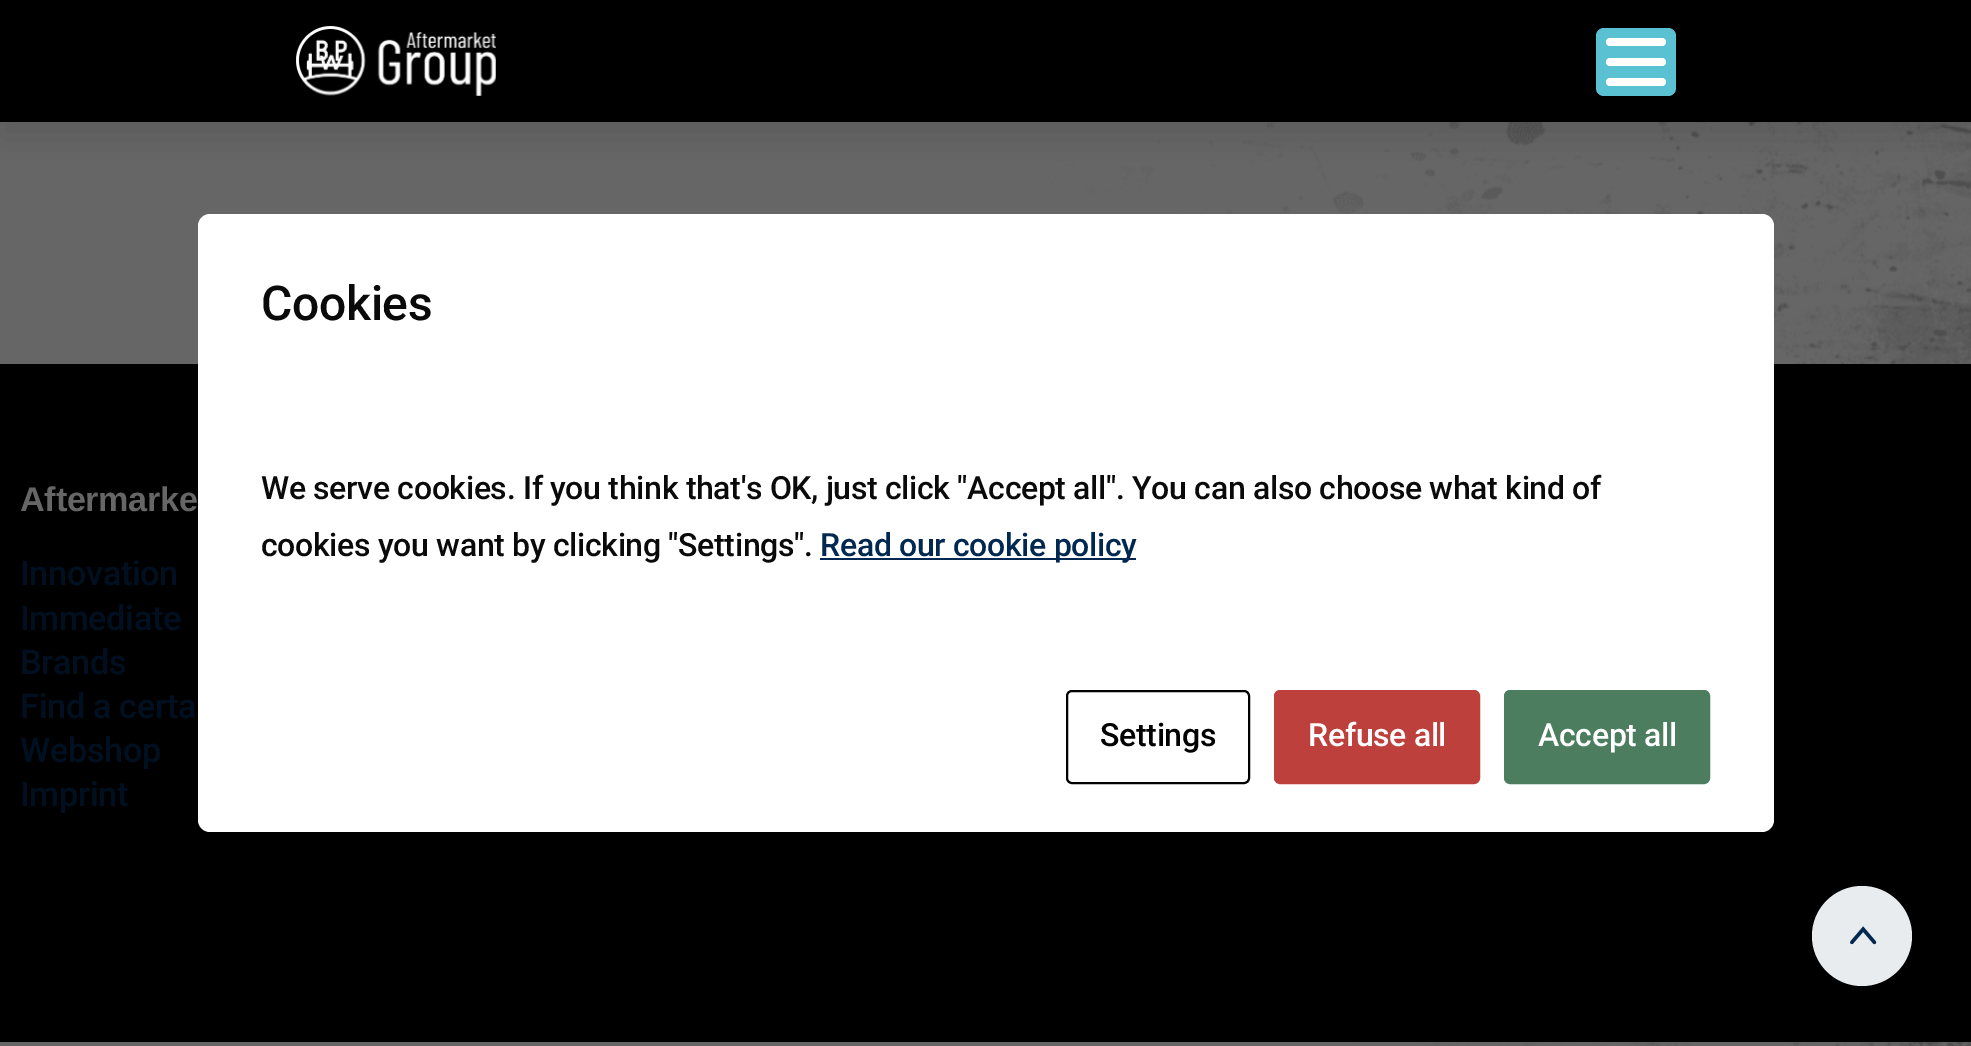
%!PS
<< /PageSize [1971 1046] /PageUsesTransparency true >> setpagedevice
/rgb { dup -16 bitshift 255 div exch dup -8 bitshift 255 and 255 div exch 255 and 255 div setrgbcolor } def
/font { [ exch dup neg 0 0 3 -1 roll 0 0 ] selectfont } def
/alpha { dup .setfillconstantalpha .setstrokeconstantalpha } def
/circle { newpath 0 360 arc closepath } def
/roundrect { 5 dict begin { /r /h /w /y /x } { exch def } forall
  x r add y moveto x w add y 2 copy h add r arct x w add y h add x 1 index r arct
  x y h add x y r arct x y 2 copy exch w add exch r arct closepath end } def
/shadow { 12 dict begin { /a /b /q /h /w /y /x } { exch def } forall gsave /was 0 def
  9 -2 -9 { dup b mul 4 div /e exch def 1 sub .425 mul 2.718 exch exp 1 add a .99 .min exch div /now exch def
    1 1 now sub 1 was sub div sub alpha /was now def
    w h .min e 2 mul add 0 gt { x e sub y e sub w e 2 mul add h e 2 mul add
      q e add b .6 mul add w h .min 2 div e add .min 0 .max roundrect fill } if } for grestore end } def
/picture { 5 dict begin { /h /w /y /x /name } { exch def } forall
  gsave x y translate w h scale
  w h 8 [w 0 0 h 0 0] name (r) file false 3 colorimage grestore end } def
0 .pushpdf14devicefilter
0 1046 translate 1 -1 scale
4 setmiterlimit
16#666666 rgb
0 0 1971 1046 rectfill
(pic1.raw) 1048 122 923 924 picture
16#000000 rgb
0 16 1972 122 0 19 0.1 shadow
0 0 1971 122 rectfill
(pic2.raw) 296 26 200 70 picture
16#5AC1D2 rgb
1596 28 80 68 8 roundrect fill
16#FFFFFF rgb
1606 58 60 8 4 roundrect fill
1606 38 60 8 4 roundrect fill
1606 78 60 8 4 roundrect fill
16#000000 rgb
0 364 1971 678 rectfill
/LiberationSans-Bold 34.25 font
16#666666 rgb
20 511 moveto -0.32 0 (Aftermarke) ashow
/Roboto-Medium 34.25 font
16#001020 rgb
20 585 moveto -0.32 0 (Innovation) ashow
20 630 moveto -0.32 0 (Immediate) ashow
20 674 moveto -0.32 0 (Brands) ashow
20 718 moveto -0.32 0 (Find a certa) ashow
20 762 moveto -0.32 0 (Webshop) ashow
20 806 moveto -0.32 0 (Imprint) ashow
16#FFFFFF rgb
210 214 moveto 1762 214 lineto 1768.5 214 1774 219.5 1774 226 curveto 1774 396 lineto 198 396 lineto 198 226 lineto 198 219.5 203.5 214 210 214 curveto closepath fill
/Roboto-Medium 48 font
16#0A0A0A rgb
261 320 moveto -0.32 0 (Cookies) ashow
16#FFFFFF rgb
198 396 1576 244 rectfill
/Roboto-Medium 32 font
16#0A0A0A rgb
261 499 moveto -0.32 0 (We serve cookies. If you think that's OK, just click "Accept all". You can also choose what kind of) ashow
261 556 moveto -0.32 0 (cookies you want by clicking "Settings".) ashow
16#002851 rgb
820 558 316 2 rectfill
820 556 moveto -0.32 0 (Read our cookie policy) ashow
16#FFFFFF rgb
198 640 moveto 1774 640 lineto 1774 820 lineto 1774 826.5 1768.5 832 1762 832 curveto 210 832 lineto 203.5 832 198 826.5 198 820 curveto closepath fill
16#000000 rgb
2 setlinewidth
1067 691 182 92 5 roundrect stroke
1100 746 moveto -0.32 0 (Settings) ashow
16#BD403C rgb
1275 691 204 92 5 roundrect gsave fill grestore
stroke
16#FFFFFF rgb
1308 746 moveto -0.32 0 (Refuse all) ashow
16#4B7D5E rgb
1505 691 204 92 5 roundrect gsave fill grestore
stroke
16#FFFFFF rgb
1538 746 moveto -0.32 0 (Accept all) ashow
16#E9ECEF rgb
1862 936 50 circle fill
(pic3.raw) 1850 926 27 19 picture
.poppdf14devicefilter showpage
